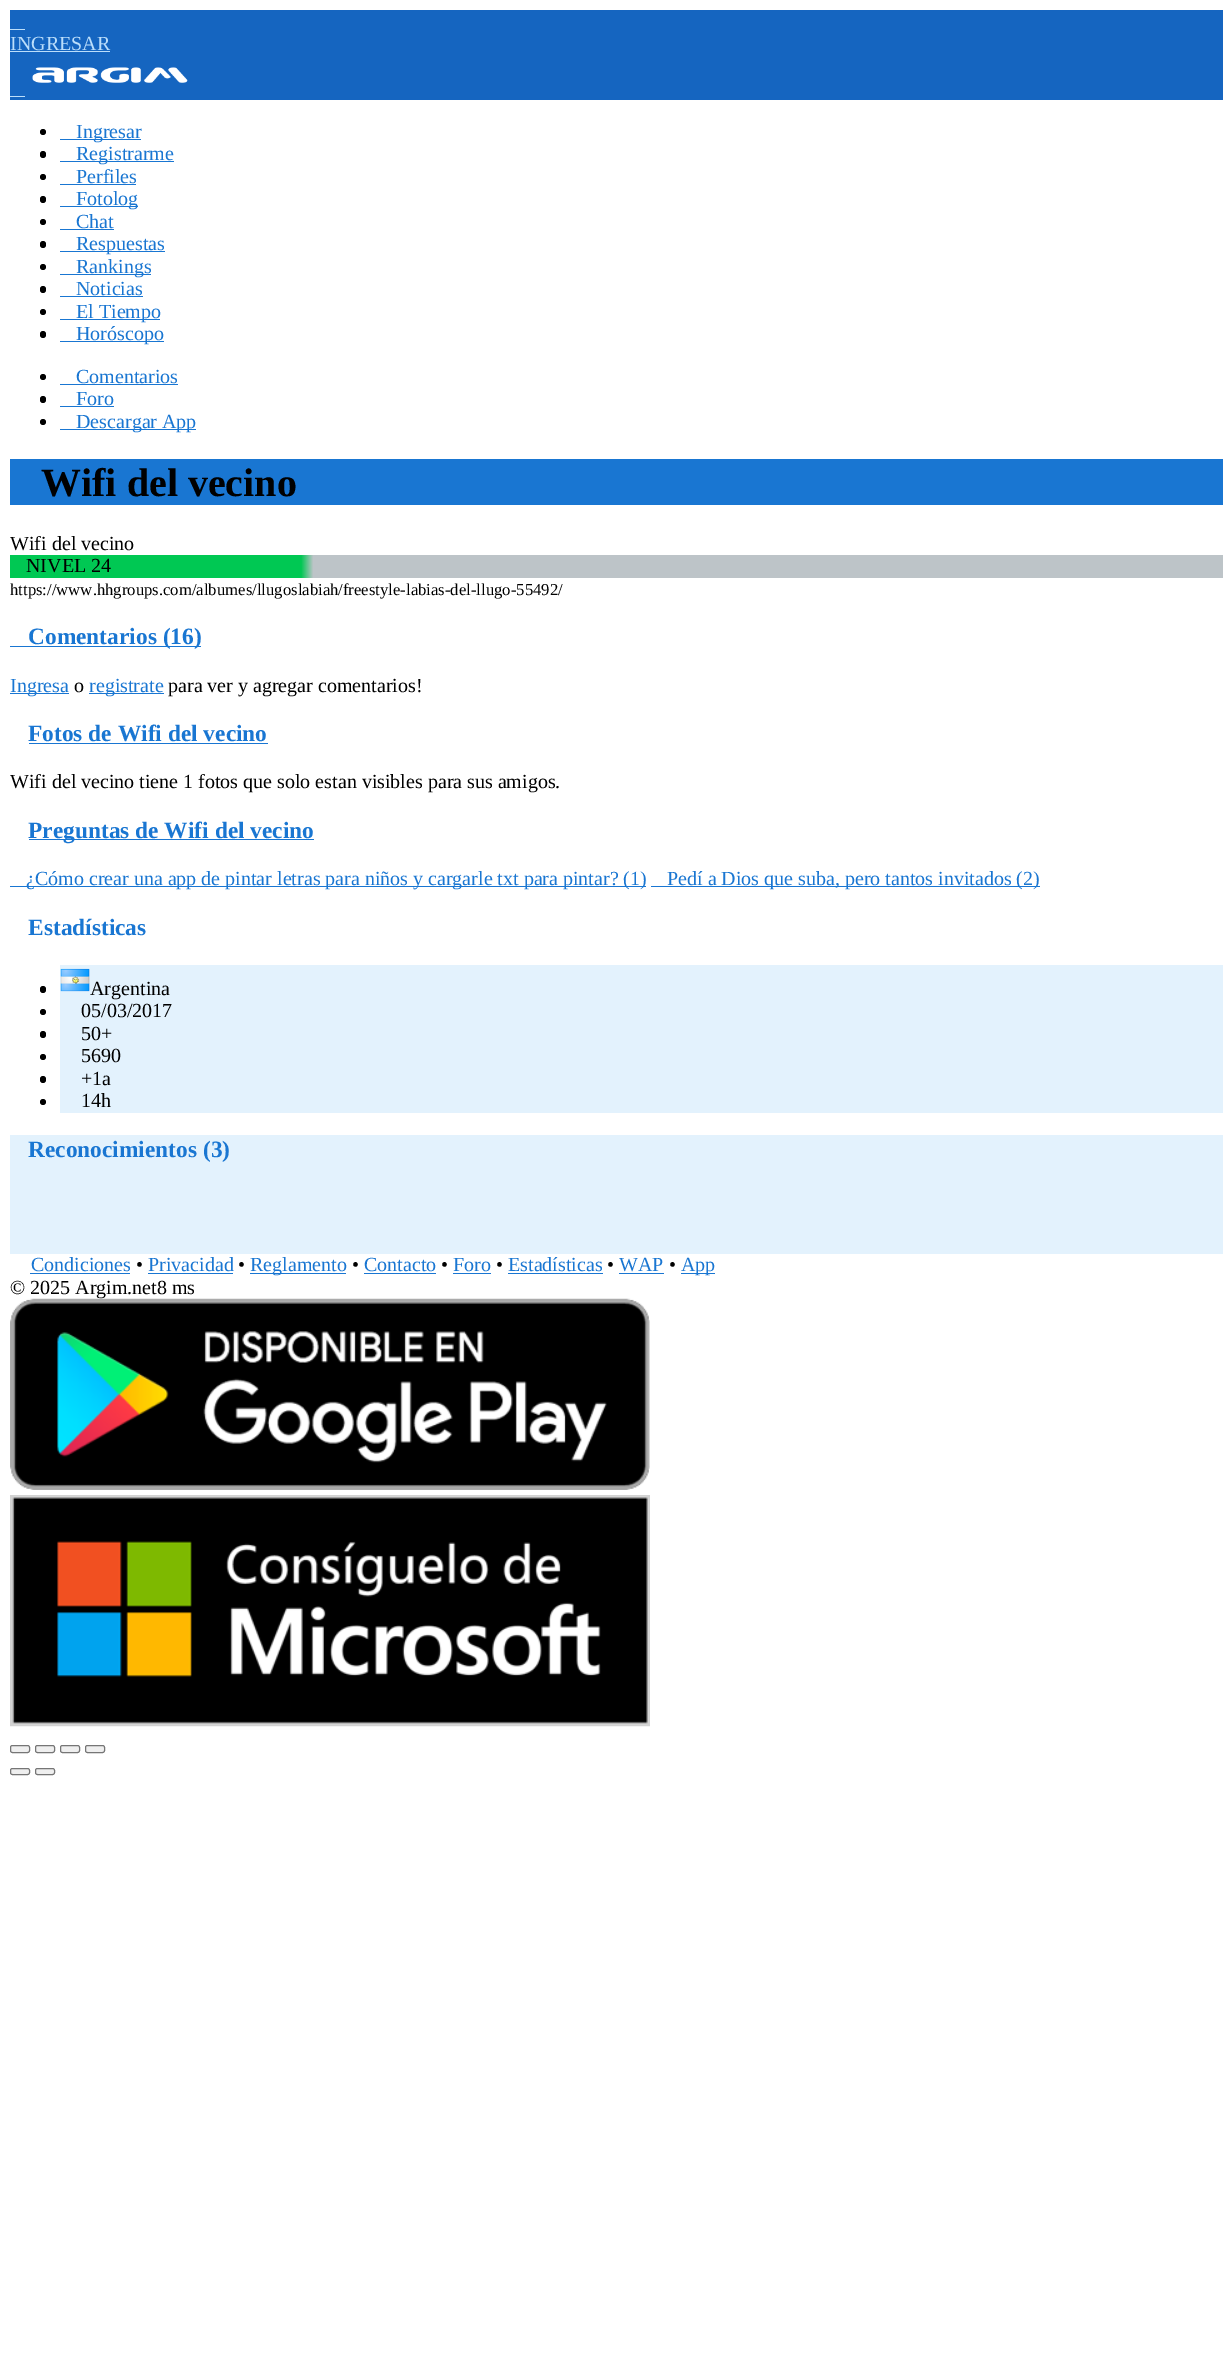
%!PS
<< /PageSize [1232 2356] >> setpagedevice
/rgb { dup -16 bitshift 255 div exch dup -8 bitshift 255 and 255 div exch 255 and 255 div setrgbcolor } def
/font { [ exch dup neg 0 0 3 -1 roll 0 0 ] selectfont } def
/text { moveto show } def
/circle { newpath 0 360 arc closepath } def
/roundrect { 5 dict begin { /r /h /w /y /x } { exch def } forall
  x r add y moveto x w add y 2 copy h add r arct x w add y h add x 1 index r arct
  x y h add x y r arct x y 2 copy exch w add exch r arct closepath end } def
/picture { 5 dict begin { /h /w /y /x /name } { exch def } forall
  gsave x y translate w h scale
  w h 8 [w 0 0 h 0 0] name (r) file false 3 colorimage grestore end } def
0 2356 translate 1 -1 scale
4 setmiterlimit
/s1 { /LiberationSerif-Regular 20 font 16#BBDEFB rgb } def
/s2 { /LiberationSerif-Regular 20 font 16#1976D2 rgb } def
/s3 { /LiberationSerif-Bold 40 font 16#000000 rgb } def
/s4 { /LiberationSerif-Regular 20 font 16#000000 rgb } def
/s5 { /LiberationSerif-Regular 16.7 font 16#000000 rgb } def
/s6 { /LiberationSerif-Bold 23.4 font 16#1976D2 rgb } def
16#FFFFFF rgb
0 0 1232 2356 rectfill
16#1565C0 rgb
10 10 1213 90 rectfill
16#BBDEFB rgb
10 29 15 1 rectfill
s1
(INGRESAR) 10 50 text
10 51 100 1 rectfill
(pic1.raw) 32 67 156 16 picture
10 96 15 1 rectfill
16#000000 rgb
43 132 3 circle fill
16#1976D2 rgb
60 139 81 1 rectfill
(Ingresar) 76 138 text
16#000000 rgb
40 151 6 7 3 roundrect fill
16#1976D2 rgb
60 161 114 1 rectfill
(Registrarme) 76 160 text
16#000000 rgb
43 177 3 circle fill
s2
(Perfiles) 76 183 text
60 184 76 1 rectfill
16#000000 rgb
40 196 6 7 3 roundrect fill
16#1976D2 rgb
60 206 78 1 rectfill
(Fotolog) 76 205 text
16#000000 rgb
43 222 3 circle fill
s2
(Chat) 76 228 text
60 229 54 1 rectfill
16#000000 rgb
40 241 6 7 3 roundrect fill
16#1976D2 rgb
60 251 105 1 rectfill
(Respuestas) 76 250 text
16#000000 rgb
43 267 3 circle fill
16#1976D2 rgb
60 274 91 1 rectfill
(Rankings) 76 273 text
16#000000 rgb
40 286 6 7 3 roundrect fill
s2
(Noticias) 76 295 text
60 296 83 1 rectfill
16#000000 rgb
43 312 3 circle fill
16#1976D2 rgb
60 319 100 1 rectfill
(El Tiempo) 76 318 text
16#000000 rgb
40 331 6 7 3 roundrect fill
16#1976D2 rgb
60 341 104 1 rectfill
(Horóscopo) 76 340 text
16#000000 rgb
43 377 3 circle fill
s2
(Comentarios) 76 383 text
60 384 118 1 rectfill
16#000000 rgb
40 396 6 7 3 roundrect fill
s2
(Foro) 76 405 text
60 406 54 1 rectfill
16#000000 rgb
43 422 3 circle fill
16#1976D2 rgb
60 429 136 1 rectfill
(Descargar App) 76 428 text
10 459 1213 46 rectfill
s3
(Wifi del vecino) 41 496 text
s4
(Wifi del vecino) 10 550 text
gsave 10 555 moveto 1223 555 lineto 1223 578 lineto 10 578 lineto closepath clip newpath
<< /ShadingType 2 /ColorSpace /DeviceRGB /Coords [10 566 1223 566] /Extend [true true] /Function << /FunctionType 3 /Domain [0 1] /Functions [<< /FunctionType 2 /Domain [0 1] /C0 [0 0.784 0.325] /C1 [0 0.784 0.325] /N 1 >> << /FunctionType 2 /Domain [0 1] /C0 [0 0.784 0.325] /C1 [0.741 0.769 0.784] /N 1 >> << /FunctionType 2 /Domain [0 1] /C0 [0.741 0.769 0.784] /C1 [0.741 0.769 0.784] /N 1 >>] /Bounds [0.24 0.25] /Encode [0 1 0 1 0 1] >> >> shfill grestore
(NIVEL 24) 26 572 text
s5
(https://www.hhgroups.com/albumes/llugoslabiah/freestyle-labias-del-llugo-55492/) 10 595 text
16#1976D2 rgb
10 646 191 1 rectfill
s6
(Comentarios \(16\)) 28 644 text
10 693 59 1 rectfill
s2
(Ingresa) 10 692 text
s4
(o) 74 692 text
16#1976D2 rgb
89 693 75 1 rectfill
(registrate) 89 692 text
s4
(para ver y agregar comentarios!) 168 692 text
s6
(Fotos de Wifi del vecino) 28 741 text
29 743 239 1 rectfill
s4
(Wifi del vecino tiene 1 fotos que solo estan visibles para sus amigos.) 10 788 text
16#1976D2 rgb
29 839 285 1 rectfill
s6
(Preguntas de Wifi del vecino) 28 838 text
10 886 636 1 rectfill
s2
(¿Cómo crear una app de pintar letras para niños y cargarle txt para pintar? \(1\)) 26 885 text
651 886 389 1 rectfill
(Pedí a Dios que suba, pero tantos invitados \(2\)) 667 885 text
s6
(Estadísticas) 28 935 text
16#E3F2FD rgb
60 965 1163 148 rectfill
16#000000 rgb
40 986 6 7 3 roundrect fill
(pic2.raw) 60 968 30 24 picture
s4
(Argentina) 90 995 text
43 1012 3 circle fill
(05/03/2017) 81 1017 text
40 1031 6 7 3 roundrect fill
(50+) 81 1040 text
43 1057 3 circle fill
(5690) 81 1062 text
40 1076 6 7 3 roundrect fill
(+1a) 81 1085 text
43 1102 3 circle fill
(14h) 81 1107 text
16#E3F2FD rgb
10 1135 1213 119 rectfill
s6
(Reconocimientos \(3\)) 28 1157 text
s2
(Condiciones) 31 1271 text
30 1273 100 1 rectfill
s4
(•) 136 1271 text
s2
(Privacidad) 148 1271 text
148 1273 85 1 rectfill
s4
(•) 238 1271 text
16#1976D2 rgb
250 1273 96 1 rectfill
(Reglamento) 250 1271 text
s4
(•) 352 1271 text
s2
(Contacto) 364 1271 text
364 1273 72 1 rectfill
s4
(•) 441 1271 text
s2
(Foro) 453 1271 text
453 1273 38 1 rectfill
s4
(•) 496 1271 text
s2
(Estadísticas) 508 1271 text
508 1273 95 1 rectfill
s4
(•) 607 1271 text
s2
(WAP) 619 1271 text
619 1273 45 1 rectfill
s4
(•) 669 1271 text
16#1976D2 rgb
681 1273 34 1 rectfill
(App) 681 1271 text
s4
(© 2025 Argim.net8 ms) 10 1294 text
(pic3.raw) 10 1298 640 192 picture
(pic4.raw) 10 1495 640 232 picture
16#EFEFEF rgb
10.5 1745.5 19 7 2 roundrect gsave fill grestore
16#767676 rgb
stroke
16#EFEFEF rgb
35.5 1745.5 19 7 2 roundrect gsave fill grestore
16#767676 rgb
stroke
16#EFEFEF rgb
60.5 1745.5 19 7 2 roundrect gsave fill grestore
16#767676 rgb
stroke
16#EFEFEF rgb
85.5 1745.5 19 7 2 roundrect gsave fill grestore
16#767676 rgb
stroke
16#EFEFEF rgb
10.5 1768.5 19 6 2 roundrect gsave fill grestore
16#767676 rgb
stroke
16#EFEFEF rgb
35.5 1768.5 19 6 2 roundrect gsave fill grestore
16#767676 rgb
stroke
showpage
